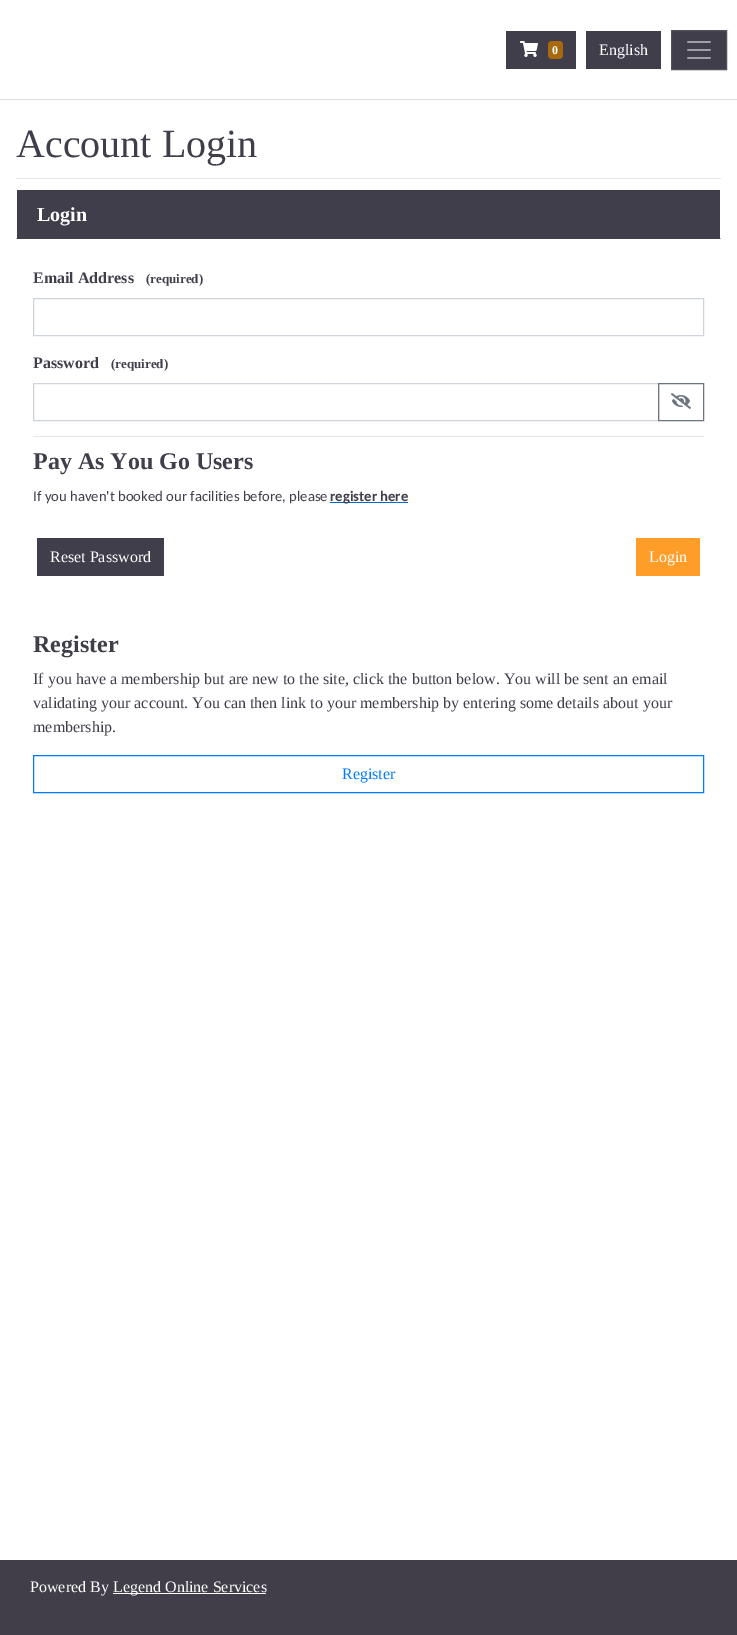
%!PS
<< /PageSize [737 1635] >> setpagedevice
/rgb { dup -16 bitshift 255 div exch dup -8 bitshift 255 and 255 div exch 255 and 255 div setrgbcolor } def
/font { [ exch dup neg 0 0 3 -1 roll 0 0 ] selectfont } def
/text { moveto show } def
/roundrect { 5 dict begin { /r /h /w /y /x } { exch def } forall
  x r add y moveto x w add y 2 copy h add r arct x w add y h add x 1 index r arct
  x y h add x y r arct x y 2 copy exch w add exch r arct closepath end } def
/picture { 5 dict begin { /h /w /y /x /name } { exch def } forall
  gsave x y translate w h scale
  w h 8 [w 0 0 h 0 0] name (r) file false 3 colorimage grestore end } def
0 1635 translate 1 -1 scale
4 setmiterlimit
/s1 { /LiberationSerif-Bold 12 font 16#FFFFFF rgb } def
/s2 { /LiberationSerif-Regular 16 font 16#FFFFFF rgb } def
/s3 { /LiberationSerif-Regular 40 font 16#413E4B rgb } def
/s4 { /LiberationSerif-Bold 20 font 16#FFFFFF rgb } def
/s5 { /LiberationSerif-Bold 16 font 16#413E4B rgb } def
/s6 { /LiberationSerif-Bold 13 font 16#413E4B rgb } def
/s7 { /LiberationSerif-Bold 24 font 16#413E4B rgb } def
/s8 { /Carlito-Regular 14.7 font 16#413E4B rgb } def
/s9 { /Carlito-Bold 14.7 font 16#413E4B rgb } def
/s10 { /LiberationSerif-Regular 16 font 16#413E4B rgb } def
/s11 { /LiberationSerif-Regular 16 font 16#007BFF rgb } def
16#FFFFFF rgb
0 0 737 1635 rectfill
16#DFDFDF rgb
0 99 737 1 rectfill
16#413E4B rgb
506 31 70 38 rectfill
(pic1.raw) 520 41 18 16 picture
16#A7680E rgb
548 41 15 18 4 roundrect fill
s1
(0) 552 54 text
16#413E4B rgb
586 31 75 38 rectfill
s2
(English) 599 55 text
16#413E4B rgb
671.5 30.5 moveto 726.5 30.5 lineto 726.5 69.5 lineto 671.5 69.5 lineto closepath gsave fill grestore
16#54515D rgb
stroke
(pic2.raw) 687 41 24 18 picture
s3
(Account Login) 16 157 text
16#E6E6E6 rgb
16 178 705 1 rectfill
16#413E4B rgb
16 190 705 49 rectfill
16#FFFFFF rgb
721 189 moveto 721 239 lineto 720 238 lineto 720 190 lineto closepath fill
16 239 moveto 16 189 lineto 17 190 lineto 17 238 lineto closepath fill
s4
(Login) 37 221 text
s5
(Email Address) 33 283 text
s6
(\(required\)) 146 283 text
16#CED4DA rgb
33.5 298.5 670 37 rectstroke
s5
(Password) 33 368 text
s6
(\(required\)) 111 368 text
16#CED4DA rgb
33.5 383.5 625 37 rectstroke
16#6C757D rgb
658.5 383.5 45 37 rectstroke
(pic3.raw) 671 393 20 16 picture
16#E6E6E6 rgb
33 436 671 1 rectfill
s7
(Pay As You Go Users) 33 469 text
s8
(If you haven't booked our facilities before, please) 33 501 text
16#0066CC rgb
330 502 78 1 rectfill
s9
(register here) 330 501 text
37 538 127 38 rectfill
s2
(Reset Password) 50 562 text
16#FF9D29 rgb
636 538 64 38 rectfill
s2
(Login) 649 562 text
s7
(Register) 33 652 text
s10
(If you have a membership but are new to the site, click the button below. You will be sent an email) 33 684 text
(validating your account. You can then link to your membership by entering some details about your) 33 708 text
(membership.) 33 732 text
16#007BFF rgb
33.5 755.5 670 37 rectstroke
(Register) 342 779 text
16#413E4A rgb
0 1560 737 75 rectfill
s2
(Powered By) 30 1592 text
113 1593 153 1 rectfill
(Legend Online Services) 113 1592 text
showpage
